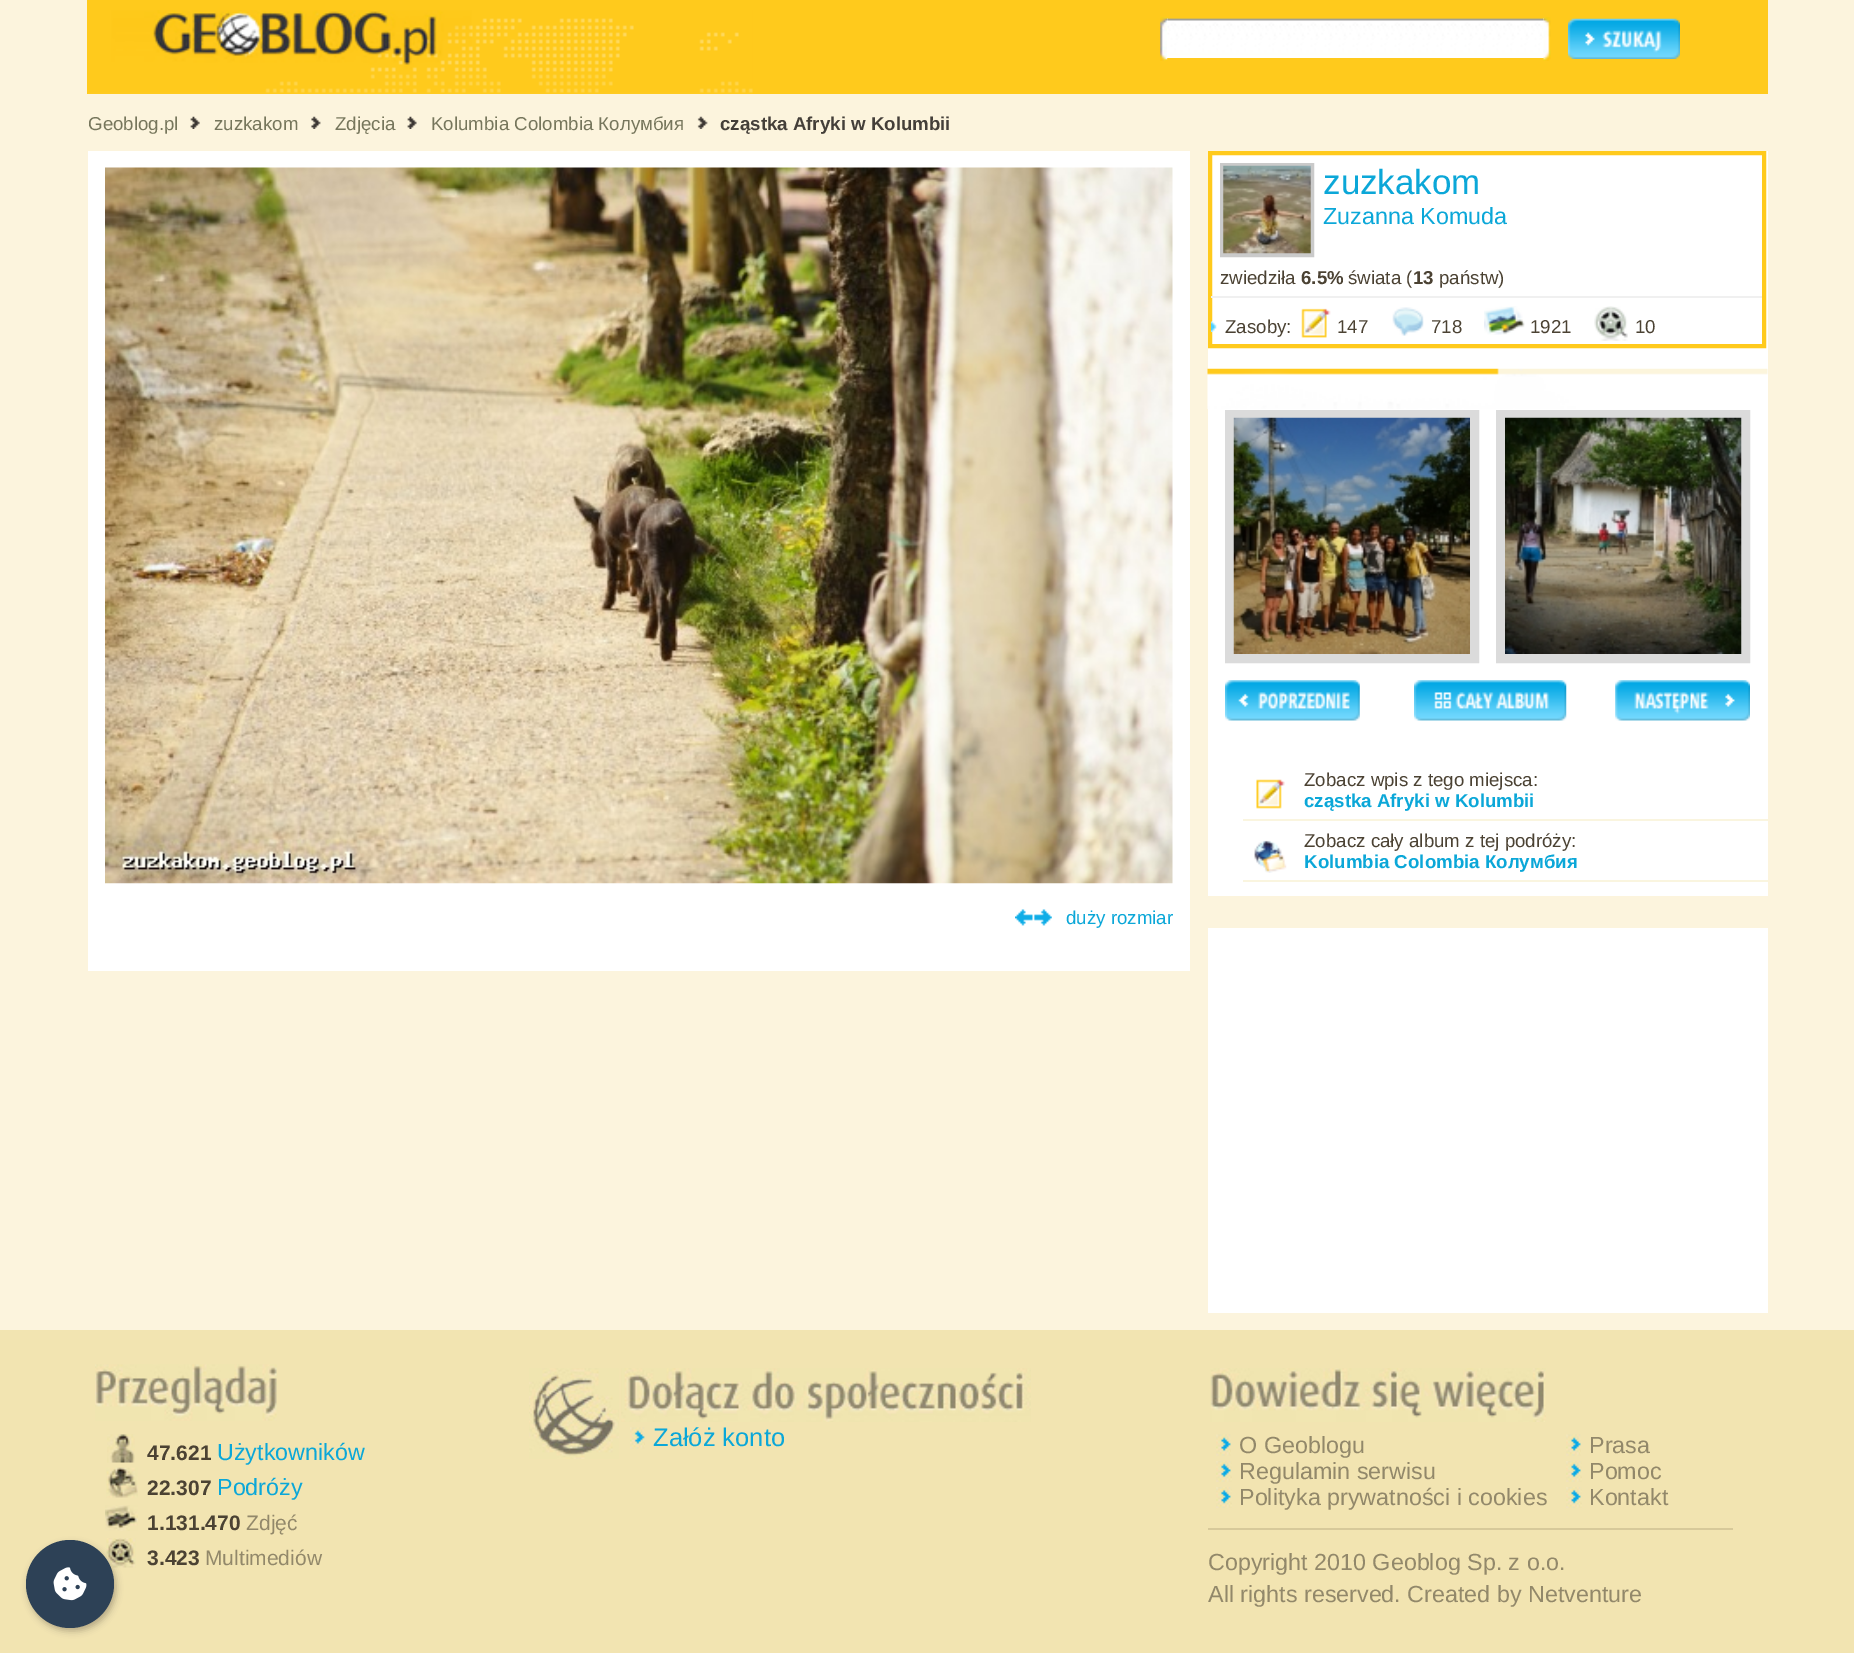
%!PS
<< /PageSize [1854 1653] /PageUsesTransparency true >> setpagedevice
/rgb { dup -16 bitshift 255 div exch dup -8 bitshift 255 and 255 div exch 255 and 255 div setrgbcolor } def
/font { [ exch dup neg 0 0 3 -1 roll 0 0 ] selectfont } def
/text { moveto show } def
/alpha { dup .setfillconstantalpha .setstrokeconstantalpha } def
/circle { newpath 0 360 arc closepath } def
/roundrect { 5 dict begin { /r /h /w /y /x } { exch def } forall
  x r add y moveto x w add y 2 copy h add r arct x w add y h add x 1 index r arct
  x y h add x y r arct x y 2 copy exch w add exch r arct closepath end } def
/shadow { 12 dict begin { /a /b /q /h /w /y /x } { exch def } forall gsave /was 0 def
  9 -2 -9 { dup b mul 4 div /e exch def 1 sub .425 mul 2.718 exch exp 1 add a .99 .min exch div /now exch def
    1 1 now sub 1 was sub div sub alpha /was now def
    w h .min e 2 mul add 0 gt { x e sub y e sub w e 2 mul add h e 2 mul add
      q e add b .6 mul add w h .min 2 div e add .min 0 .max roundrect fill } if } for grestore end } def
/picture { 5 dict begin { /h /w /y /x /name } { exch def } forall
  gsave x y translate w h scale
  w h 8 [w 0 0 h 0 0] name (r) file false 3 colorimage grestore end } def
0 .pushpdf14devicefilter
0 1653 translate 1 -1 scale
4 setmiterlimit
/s1 { /LiberationSans-Regular 18.7 font 16#76765C rgb } def
/s2 { /LiberationSans-Bold 18.7 font 16#443F39 rgb } def
/s3 { /LiberationSans-Regular 35 font 16#0BA7D8 rgb } def
/s4 { /LiberationSans-Regular 23.3 font 16#0BA7D8 rgb } def
/s5 { /LiberationSans-Regular 18.7 font 16#4B4233 rgb } def
/s6 { /LiberationSans-Bold 18.7 font 16#4B4233 rgb } def
/s7 { /LiberationSans-Bold 18.7 font 16#0BA7D8 rgb } def
/s8 { /LiberationSans-Regular 18.7 font 16#0BA7D8 rgb } def
/s9 { /LiberationSans-Regular 25.5 font 16#0BA7D8 rgb } def
/s10 { /LiberationSans-Bold 21 font 16#4B4233 rgb } def
/s11 { /LiberationSans-Regular 21 font 16#92886A rgb } def
/s12 { /LiberationSans-Regular 23.3 font 16#92886A rgb } def
16#FCF4DD rgb
0 0 1854 1653 rectfill
16#FFCA1C rgb
87 0 1681 94 rectfill
(pic1.raw) 88 10 665 84 picture
(pic2.raw) 1160 17 8 44 picture
16#FFFFFF rgb
1167 18 377 40 rectfill
(pic3.raw) 1167 18 377 37 picture
(pic4.raw) 1543 17 8 44 picture
(pic5.raw) 1568 18 112 41 picture
s1
(Geoblog.pl) 88 130 text
(pic6.raw) 190 116 10 13 picture
(zuzkakom) 214 130 text
(pic7.raw) 311 116 10 13 picture
(Zdjęcia) 335 130 text
(pic8.raw) 407 116 10 13 picture
(Kolumbia Colombia Колумбия) 431 130 text
(pic9.raw) 697 116 11 13 picture
s2
(cząstka Afryki w Kolumbii) 720 130 text
16#FFFFFF rgb
1208 151 560 745 rectfill
16#FFCA1C rgb
4 setlinewidth
1210 153 554 193 rectstroke
16#F0F0F0 rgb
1211 296 551 2 rectfill
16#CACACA rgb
1222 165 90 90 rectstroke
(pic10.raw) 1223 165 88 89 picture
s3
(zuzkakom) 1323 194 text
s4
(Zuzanna Komuda) 1323 224 text
s5
(zwiedziła) 1220 284 text
s6
(6.5%) 1301 284 text
s5
(świata \() 1348 284 text
s6
(13) 1413 284 text
s5
(państw\)) 1439 284 text
(pic11.raw) 1211 321 6 11 picture
(Zasoby:) 1225 333 text
(pic12.raw) 1301 308 30 30 picture
(147) 1337 333 text
(pic13.raw) 1392 307 32 29 picture
(718) 1431 333 text
(pic14.raw) 1484 306 41 29 picture
(1921) 1530 333 text
(pic15.raw) 1594 306 34 35 picture
(10) 1635 333 text
(pic16.raw) 1207 368 561 41 picture
16#DBDBDB rgb
9 setlinewidth
1229.5 414.5 245 244 rectstroke
(pic17.raw) 1233 417 237 237 picture
1500.5 414.5 245 244 rectstroke
(pic18.raw) 1505 417 237 237 picture
(pic19.raw) 1225 680 135 41 picture
(pic20.raw) 1414 680 153 41 picture
(pic21.raw) 1615 680 135 41 picture
16#FAF5DF rgb
1243 819 525 2 rectfill
(pic22.raw) 1256 779 29 30 picture
s5
(Zobacz wpis z tego miejsca:) 1304 786 text
s7
(cząstka Afryki w Kolumbii) 1304 807 text
16#FAF5DF rgb
1243 880 525 2 rectfill
(pic23.raw) 1254 840 33 33 picture
s5
(Zobacz cały album z tej podróży:) 1304 847 text
s7
(Kolumbia Colombia Колумбия) 1304 868 text
16#FFFFFF rgb
1208 928 560 385 rectfill
88 151 1102 820 rectfill
(pic24.raw) 105 167 1068 717 picture
(pic25.raw) 1015 909 37 17 picture
s8
(duży rozmiar) 1066 924 text
16#F2E4B1 rgb
0 1330 1854 323 rectfill
(pic34.raw) 106 1538 30 30 picture
16#000000 rgb
28 1544 88 87 43.5 3.5 0.25 shadow
16#2D4156 rgb
70 1584 44 circle fill
(pic26.raw) 53 1567 34 34 picture
(pic27.raw) 529 1368 90 91 picture
(pic28.raw) 621 1368 410 54 picture
(pic29.raw) 630 1427 15 22 picture
s9
(Załóż konto) 653 1446 text
(pic30.raw) 95 1364 182 57 picture
(pic31.raw) 107 1434 28 29 picture
s10
(47.621) 147 1460 text
s4
(Użytkowników) 217 1460 text
(pic32.raw) 106 1467 32 31 picture
s10
(22.307) 147 1495 text
s4
(Podróży) 217 1495 text
(pic33.raw) 105 1505 33 26 picture
s10
(1.131.470) 147 1530 text
s11
(Zdjęć) 246 1530 text
s10
(3.423) 147 1565 text
s11
(Multimediów) 205 1565 text
(pic35.raw) 1210 1368 336 54 picture
16#D7C99A rgb
1208 1528 525 2 rectfill
(pic36.raw) 1216 1434 15 22 picture
s12
(O Geoblogu) 1239 1453 text
(pic37.raw) 1216 1461 16 21 picture
(Regulamin serwisu) 1239 1479 text
(pic38.raw) 1216 1487 16 21 picture
(Polityka prywatności i cookies) 1239 1505 text
(pic39.raw) 1566 1434 15 22 picture
(Prasa) 1589 1453 text
(pic40.raw) 1566 1461 16 21 picture
(Pomoc) 1589 1479 text
(pic41.raw) 1566 1487 16 21 picture
(Kontakt) 1589 1505 text
(Copyright 2010 Geoblog Sp. z o.o.) 1208 1570 text
(All rights reserved. Created by Netventure) 1208 1602 text
.poppdf14devicefilter showpage
